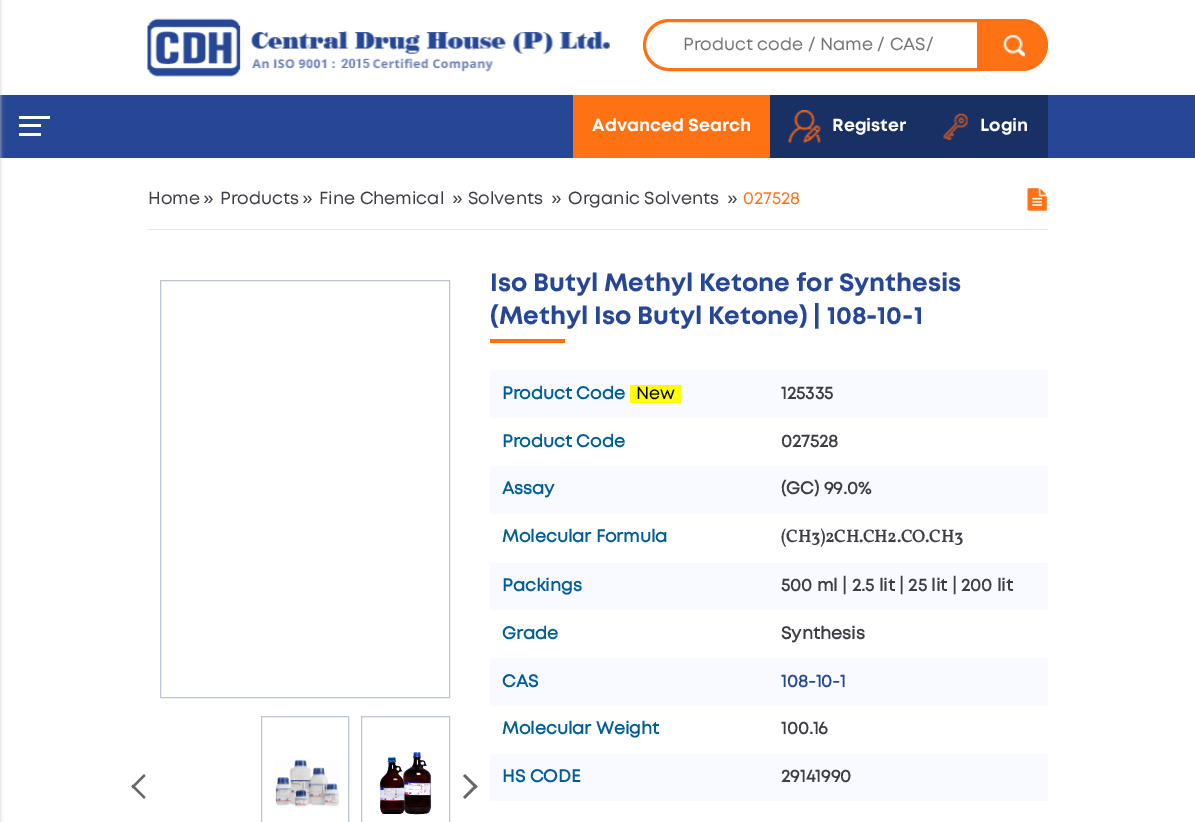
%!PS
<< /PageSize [1195 822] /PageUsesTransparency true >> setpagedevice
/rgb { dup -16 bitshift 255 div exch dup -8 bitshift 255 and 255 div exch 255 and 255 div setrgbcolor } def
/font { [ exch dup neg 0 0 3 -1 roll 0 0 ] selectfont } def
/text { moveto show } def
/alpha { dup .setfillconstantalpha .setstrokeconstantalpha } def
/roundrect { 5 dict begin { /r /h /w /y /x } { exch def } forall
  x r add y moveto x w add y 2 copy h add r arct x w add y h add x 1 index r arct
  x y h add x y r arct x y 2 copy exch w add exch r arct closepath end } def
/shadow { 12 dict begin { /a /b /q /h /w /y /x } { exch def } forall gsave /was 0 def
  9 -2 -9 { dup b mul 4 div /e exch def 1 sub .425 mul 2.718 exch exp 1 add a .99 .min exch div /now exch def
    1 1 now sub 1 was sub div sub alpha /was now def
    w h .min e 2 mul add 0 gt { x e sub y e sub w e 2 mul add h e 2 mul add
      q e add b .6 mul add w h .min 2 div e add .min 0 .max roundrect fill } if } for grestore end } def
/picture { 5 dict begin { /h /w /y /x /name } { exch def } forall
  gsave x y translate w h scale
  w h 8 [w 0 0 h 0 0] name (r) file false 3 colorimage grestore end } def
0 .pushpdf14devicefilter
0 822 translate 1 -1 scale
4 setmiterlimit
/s1 { /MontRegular-Regular 17.5 font 16#757575 rgb } def
/s2 { /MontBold-Bold 17.5 font 16#FFFFFF rgb } def
/s3 { /MontRegular-Regular 17.5 font 16#3D3E45 rgb } def
/s4 { /MontRegular-Regular 17.5 font 16#FF7214 rgb } def
/s5 { /MontBold-Bold 25 font 16#264796 rgb } def
/s6 { /MontRegular-Bold 17.5 font 16#015D95 rgb } def
/s7 { /MontRegular-Regular 17.5 font 16#000000 rgb } def
/s8 { /MontRegular-Bold 17.5 font 16#3D3E45 rgb } def
/s9 { /Vollkorn-Bold 17.5 font 16#3D3E45 rgb } def
/s10 { /MontRegular-Bold 17.5 font 16#264796 rgb } def
16#FFFFFF rgb
0 0 1195 822 rectfill
(pic1.raw) 147 18 463 59 picture
16#FF7214 rgb
3 setlinewidth
669 20.5 moveto 978.5 20.5 lineto 978.5 69.5 lineto 669 69.5 lineto 655.5 69.5 644.5 58.5 644.5 45 curveto 644.5 31.5 655.5 20.5 669 20.5 curveto closepath stroke
s1
(Product code / Name / CAS/) 683 50 text
16#FF7214 rgb
980 19 moveto 1022 19 lineto 1036.5 19 1048 30.5 1048 45 curveto 1048 59.5 1036.5 71 1022 71 curveto 980 71 lineto closepath fill
(pic2.raw) 1003 34 22 23 picture
16#264796 rgb
0 95 1195 63 rectfill
16#CCCCCC rgb
-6 0 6 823 0 2 1 shadow
16#FFFFFF rgb
19 124 22 3 rectfill
19 116 31 3 rectfill
19 133 22 3 rectfill
16#FF7214 rgb
573 95 197 63 rectfill
s2
(Advanced Search) 592 131 text
16#193065 rgb
770 95 278 63 rectfill
(pic3.raw) 788 110 33 33 picture
s2
(Register) 832 131 text
(pic4.raw) 943 113 25 27 picture
(Login) 980 131 text
16#E8E8E8 rgb
148 229 900 1 rectfill
s3
(Home) 148 204 text
(») 203 204 text
(Products) 220 204 text
(») 302 204 text
(Fine Chemical) 319 204 text
(») 452 204 text
(Solvents) 468 204 text
(») 551 204 text
(Organic Solvents) 568 204 text
(») 727 204 text
s4
(027528) 743 204 text
(pic5.raw) 1027 188 20 23 picture
16#BBC3D6 rgb
1 setlinewidth
160.5 280.5 289 417 rectstroke
261.5 716.5 87 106 rectstroke
(pic6.raw) 275 759 65 49 picture
361.5 716.5 88 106 rectstroke
(pic7.raw) 379 752 53 63 picture
16#666666 rgb
144 799 moveto 131.5 786.5 lineto 133 784.5 lineto 145.5 797 lineto closepath fill
133 788.5 moveto 131.5 786.5 lineto 144 774 lineto 145.5 776 lineto closepath fill
465 774 moveto 477.5 786.5 lineto 475.5 788.5 lineto 463 776 lineto closepath fill
475.5 784.5 moveto 477.5 786.5 lineto 465 799 lineto 463 797 lineto closepath fill
s5
(Iso Butyl Methyl Ketone for Synthesis) 490 291 text
(\(Methyl Iso Butyl Ketone\) | 108-10-1) 490 324 text
16#FF7214 rgb
490 339 75 4 rectfill
16#F8FAFF rgb
490 370 558 48 rectfill
s6
(Product Code) 502 399 text
16#FFFF00 rgb
630 385 51 18 rectfill
s7
(New) 636 399 text
s8
(125335) 781 399 text
s6
(Product Code) 502 447 text
s8
(027528) 781 447 text
16#F8FAFF rgb
490 466 558 48 rectfill
s6
(Assay) 502 494 text
s8
(\(GC\) 99.0%) 781 494 text
s6
(Molecular Formula) 502 542 text
s9
(\(CH3\)2CH.CH2.CO.CH3) 781 542 text
16#F8FAFF rgb
490 563 558 47 rectfill
s6
(Packings) 502 591 text
s8
(500 ml | 2.5 lit | 25 lit | 200 lit) 781 591 text
s6
(Grade) 502 639 text
s8
(Synthesis) 781 639 text
16#F8FAFF rgb
490 658 558 48 rectfill
s6
(CAS) 502 687 text
s10
(108-10-1) 781 687 text
s6
(Molecular Weight) 502 734 text
s8
(100.16) 781 734 text
16#F8FAFF rgb
490 754 558 47 rectfill
s6
(HS CODE) 502 782 text
s8
(29141990) 781 782 text
.poppdf14devicefilter showpage
